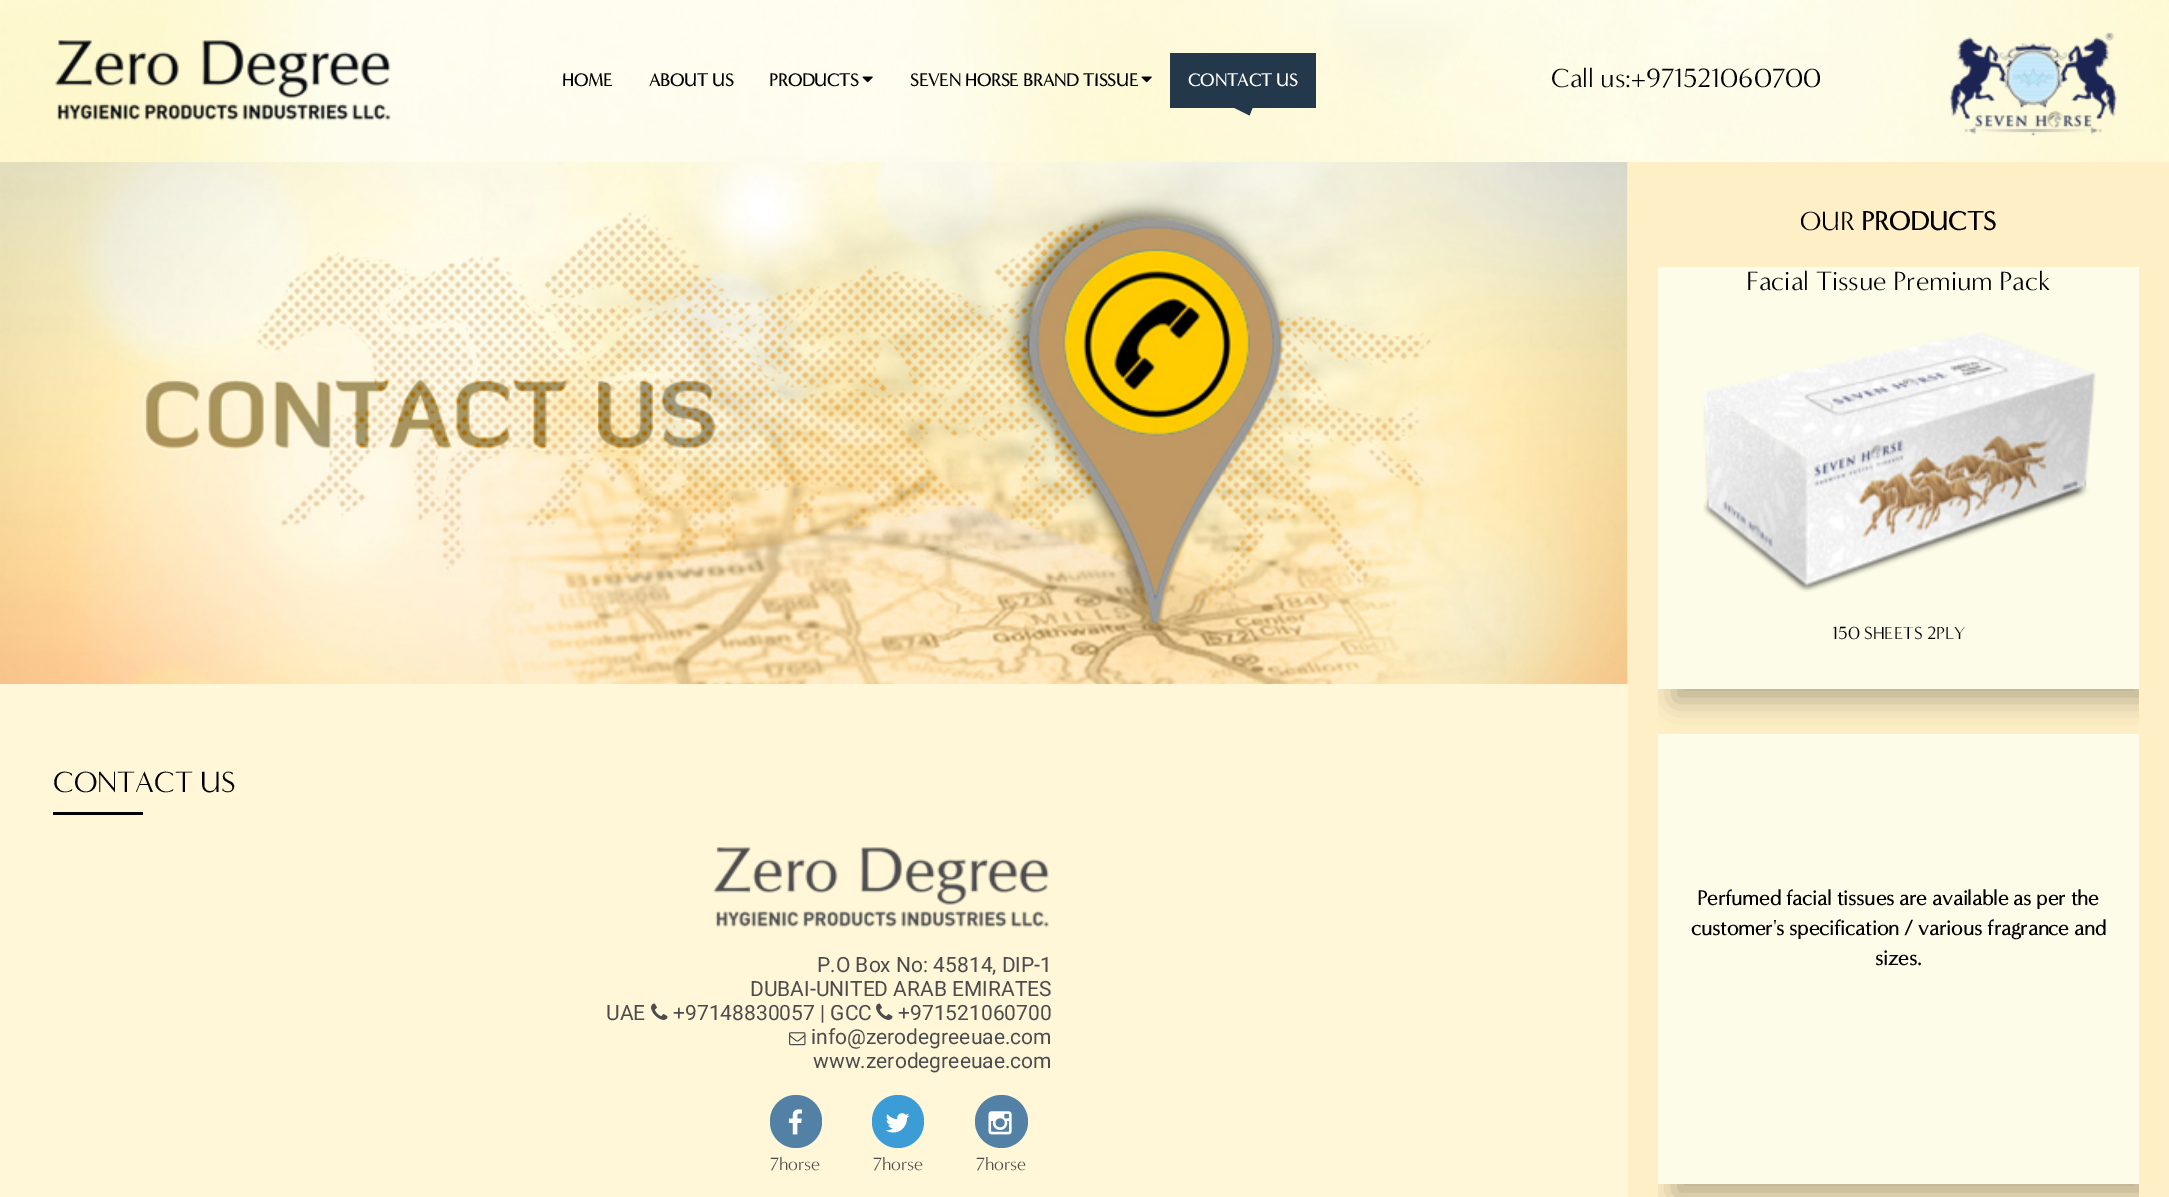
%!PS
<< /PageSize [2169 1197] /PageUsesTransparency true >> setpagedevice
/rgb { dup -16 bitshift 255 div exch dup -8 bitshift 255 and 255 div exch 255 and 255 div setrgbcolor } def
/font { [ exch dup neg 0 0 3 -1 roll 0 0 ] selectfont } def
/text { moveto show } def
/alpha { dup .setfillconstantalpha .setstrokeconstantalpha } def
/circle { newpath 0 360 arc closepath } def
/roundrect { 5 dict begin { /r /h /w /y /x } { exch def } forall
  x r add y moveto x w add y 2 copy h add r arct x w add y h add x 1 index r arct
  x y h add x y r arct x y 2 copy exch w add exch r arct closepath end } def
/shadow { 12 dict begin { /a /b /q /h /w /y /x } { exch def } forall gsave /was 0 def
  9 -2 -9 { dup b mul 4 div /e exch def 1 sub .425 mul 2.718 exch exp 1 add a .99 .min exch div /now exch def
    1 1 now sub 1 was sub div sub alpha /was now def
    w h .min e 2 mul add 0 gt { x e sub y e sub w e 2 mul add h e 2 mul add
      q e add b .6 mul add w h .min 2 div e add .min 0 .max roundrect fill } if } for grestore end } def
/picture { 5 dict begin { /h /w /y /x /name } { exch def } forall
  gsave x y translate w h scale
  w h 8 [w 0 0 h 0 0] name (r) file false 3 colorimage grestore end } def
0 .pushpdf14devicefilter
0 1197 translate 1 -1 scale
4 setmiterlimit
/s1 { /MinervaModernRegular-Bold 18 font 16#000000 rgb } def
/s2 { /MinervaModernRegular-Bold 18 font 16#FFFFFF rgb } def
/s3 { /MinervaModernRegular-Regular 27 font 16#000000 rgb } def
/s4 { /MinervaModernRegular-Regular 30 font 16#000000 rgb } def
/s5 { /Roboto-Regular 21 font 16#4C4C4E rgb } def
/s6 { /MinervaModernRegular-Regular 18 font 16#4C4C4E rgb } def
/s7 { /MinervaModernRegular-Bold 27 font 16#000000 rgb } def
/s8 { /MinervaModernRegular-Regular 18 font 16#000000 rgb } def
/s9 { /MinervaModernRegular-Bold 21 font 16#000000 rgb } def
16#FFFFFF rgb
0 0 2169 1197 rectfill
(pic1.raw) 0 0 2169 162 picture
(pic2.raw) 55 40 336 81 picture
s1
(HOME) 562 86 text
(ABOUT US) 649 86 text
(PRODUCTS) 769 86 text
(pic3.raw) 862 76 11 7 picture
(SEVEN HORSE BRAND TISSUE) 910 86 text
(pic4.raw) 1141 76 11 7 picture
16#24384B rgb
1170 53 146 55 rectfill
s2
(CONTACT US) 1188 86 text
16#24384B rgb
1234.5 108 moveto 1252.5 108 lineto 1249.5 115.5 lineto closepath fill
s3
(Call us:+971521060700) 1551 87 text
(pic5.raw) 1949 32 168 104 picture
(pic6.raw) 0 162 1628 522 picture
16#FFF7D8 rgb
0 684 1628 513 rectfill
s4
(CONTACT US) 53 792 text
53 812 90 3 rectfill
(pic7.raw) 713 847 336 81 picture
s5
(P.O Box No: 45814, DIP-1) 817 972 text
(DUBAI-UNITED ARAB EMIRATES) 750 996 text
(UAE) 606 1020 text
(pic8.raw) 651 1003 17 17 picture
(+97148830057 | GCC) 673 1020 text
(pic8.raw) 876 1003 17 17 picture
(+971521060700) 898 1020 text
(pic9.raw) 789 1032 17 14 picture
(info@zerodegreeuae.com) 811 1044 text
(www.zerodegreeuae.com) 813 1068 text
16#5380A5 rgb
770 1095 52 53 26 roundrect fill
(pic10.raw) 788 1109 14 26 picture
s6
(7horse) 770 1170 text
16#3B9CD6 rgb
872 1095 52 53 26 roundrect fill
(pic11.raw) 885 1113 25 20 picture
s6
(7horse) 873 1170 text
16#5380A5 rgb
1001.5 1121.5 26.5 circle fill
(pic12.raw) 988 1111 24 24 picture
s6
(7horse) 976 1170 text
16#FEEFC6 rgb
1628 162 541 1035 rectfill
s3
(OUR) 1800 230 text
s7
(PRODUCTS) 1861 230 text
gsave
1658 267 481 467 rectclip
1674 218 471 483 0 13.5 0.27 shadow
grestore
16#FDFCE8 rgb
1658 267 481 422 rectfill
s3
(Facial Tissue Premium Pack) 1746 290 text
(pic13.raw) 1703 332 393 260 picture
s8
(150 SHEETS 2PLY) 1832 639 text
gsave
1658 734 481 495 rectclip
1674 758 471 438 0 13.5 0.27 shadow
grestore
16#FDFCE8 rgb
1658 734 481 450 rectfill
s9
(Perfumed facial tissues are available as per the) 1697 905 text
(customer's specification / various fragrance and) 1691 935 text
(sizes.) 1875 965 text
.poppdf14devicefilter showpage
